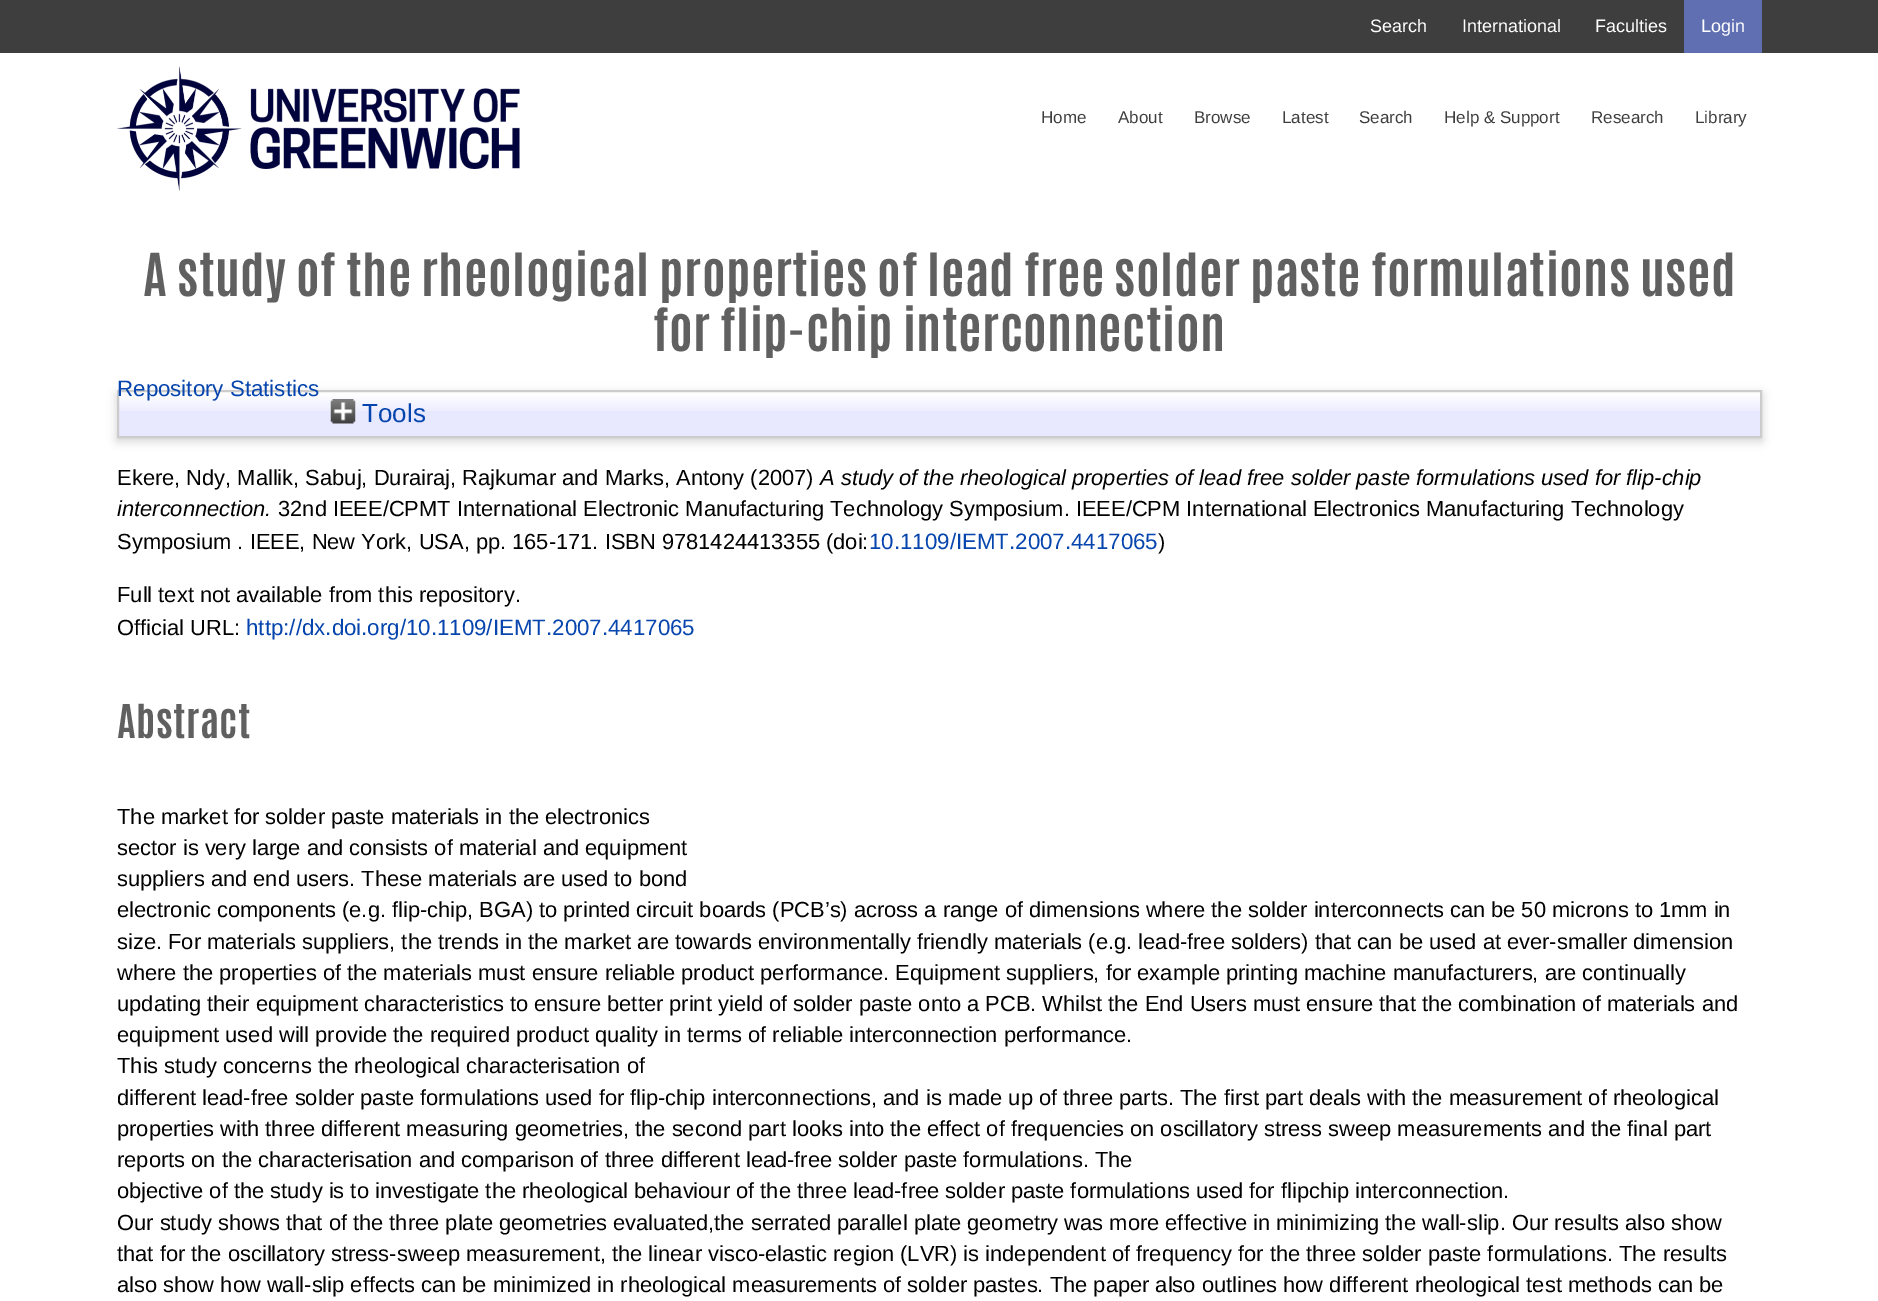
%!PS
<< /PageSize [1878 1301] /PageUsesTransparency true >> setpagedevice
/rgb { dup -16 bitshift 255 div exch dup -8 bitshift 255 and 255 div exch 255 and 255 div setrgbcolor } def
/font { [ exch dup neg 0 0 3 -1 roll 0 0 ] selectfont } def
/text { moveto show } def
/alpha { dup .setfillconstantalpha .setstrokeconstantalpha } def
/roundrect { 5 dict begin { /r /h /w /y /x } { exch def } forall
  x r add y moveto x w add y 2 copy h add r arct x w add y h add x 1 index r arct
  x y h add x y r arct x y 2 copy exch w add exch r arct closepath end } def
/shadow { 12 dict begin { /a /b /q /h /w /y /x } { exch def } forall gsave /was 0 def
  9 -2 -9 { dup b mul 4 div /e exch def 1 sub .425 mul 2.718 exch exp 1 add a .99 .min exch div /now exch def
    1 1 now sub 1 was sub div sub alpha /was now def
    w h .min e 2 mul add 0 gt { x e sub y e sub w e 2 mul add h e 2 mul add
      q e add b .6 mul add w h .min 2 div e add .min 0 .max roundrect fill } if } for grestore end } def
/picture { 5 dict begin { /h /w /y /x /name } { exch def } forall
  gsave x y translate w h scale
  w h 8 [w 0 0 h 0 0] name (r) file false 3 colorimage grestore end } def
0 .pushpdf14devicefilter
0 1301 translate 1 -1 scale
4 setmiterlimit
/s1 { /LiberationSans-Regular 18 font 16#FFFFFF rgb } def
/s2 { /LiberationSans-Regular 17 font 16#3E3E3E rgb } def
/s3 { /LiberationSans-Regular 22.3 font 16#0645AD rgb } def
/s4 { /LiberationSans-Regular 26 font 16#0645AD rgb } def
/s5 { /LiberationSans-Regular 21.88 font 16#000000 rgb } def
/s6 { /LiberationSans-Italic 21.88 font 16#000000 rgb } def
16#FFFFFF rgb
0 0 1878 1301 rectfill
16#3E3E3E rgb
0 0 1878 53 rectfill
s1
(Search) 1370 32 text
(International) 1462 32 text
(Faculties) 1595 32 text
16#606EB2 rgb
1684 0 78 53 rectfill
s1
(Login) 1701 32 text
(pic1.raw) 117 66 403 125 picture
s2
(Home) 1041 123 text
(About) 1118 123 text
(Browse) 1194 123 text
(Latest) 1282 123 text
(Search) 1359 123 text
(Help & Support) 1444 123 text
(Research) 1591 123 text
(Library) 1695 123 text
/Antonio-Bold 50.3 font
16#606060 rgb
143 296 moveto 0.45 0 (A study of the rheological properties of lead free solder paste formulations used) ashow
653 351 moveto 0.45 0 (for flip-chip interconnection) ashow
16#646464 rgb
117 394 1645 47 0 5 0.3 shadow
16#E8E8FF rgb
119 393 1641 43 rectfill
(pic2.raw) 119 392 1641 19 picture
16#CCCCCC rgb
2 setlinewidth
118 391 1643 46 rectstroke
s3
(Repository Statistics) 117 396 text
(pic3.raw) 330 399 26 25 picture
s4
(Tools) 362 422 text
s5
(Ekere, Ndy, Mallik, Sabuj, Durairaj, Rajkumar and Marks, Antony \(2007\)) 117 485 text
s6
(A study of the rheological properties of lead free solder paste formulations used for flip-chip) 820 485 text
(interconnection.) 117 516 text
s5
(32nd IEEE/CPMT International Electronic Manufacturing Technology Symposium. IEEE/CPM International Electronics Manufacturing Technology) 278 516 text
(Symposium . IEEE, New York, USA, pp. 165-171. ISBN 9781424413355 \(doi:) 117 549 text
s3
(10.1109/IEMT.2007.4417065) 869 549 text
s5
(\)) 1158 549 text
(Full text not available from this repository.) 117 602 text
(Official URL:) 117 635 text
s3
(http://dx.doi.org/10.1109/IEMT.2007.4417065) 246 635 text
/Antonio-Bold 39.5 font
16#606060 rgb
117 738 moveto 0.45 0 (Abstract) ashow
s5
(The market for solder paste materials in the electronics) 117 824 text
(sector is very large and consists of material and equipment) 117 855 text
(suppliers and end users. These materials are used to bond) 117 886 text
(electronic components \(e.g. flip-chip, BGA\) to printed circuit boards \(PCB’s\) across a range of dimensions where the solder interconnects can be 50 microns to 1mm in) 117 917 text
(size. For materials suppliers, the trends in the market are towards environmentally friendly materials \(e.g. lead-free solders\) that can be used at ever-smaller dimension) 117 949 text
(where the properties of the materials must ensure reliable product performance. Equipment suppliers, for example printing machine manufacturers, are continually) 117 980 text
(updating their equipment characteristics to ensure better print yield of solder paste onto a PCB. Whilst the End Users must ensure that the combination of materials and) 117 1011 text
(equipment used will provide the required product quality in terms of reliable interconnection performance.) 117 1042 text
(This study concerns the rheological characterisation of) 117 1073 text
(different lead-free solder paste formulations used for flip-chip interconnections, and is made up of three parts. The first part deals with the measurement of rheological) 117 1105 text
(properties with three different measuring geometries, the second part looks into the effect of frequencies on oscillatory stress sweep measurements and the final part) 117 1136 text
(reports on the characterisation and comparison of three different lead-free solder paste formulations. The) 117 1167 text
(objective of the study is to investigate the rheological behaviour of the three lead-free solder paste formulations used for flipchip interconnection.) 117 1198 text
(Our study shows that of the three plate geometries evaluated,the serrated parallel plate geometry was more effective in minimizing the wall-slip. Our results also show) 117 1230 text
(that for the oscillatory stress-sweep measurement, the linear visco-elastic region \(LVR\) is independent of frequency for the three solder paste formulations. The results) 117 1261 text
(also show how wall-slip effects can be minimized in rheological measurements of solder pastes. The paper also outlines how different rheological test methods can be) 117 1292 text
.poppdf14devicefilter showpage
